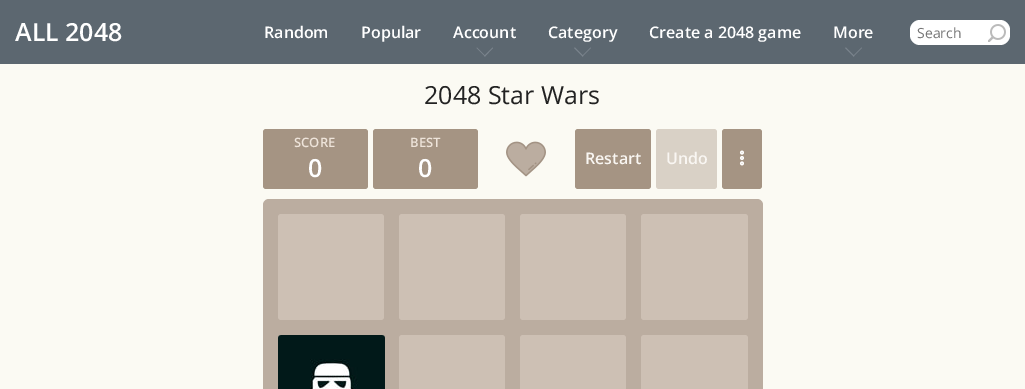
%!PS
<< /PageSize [1025 389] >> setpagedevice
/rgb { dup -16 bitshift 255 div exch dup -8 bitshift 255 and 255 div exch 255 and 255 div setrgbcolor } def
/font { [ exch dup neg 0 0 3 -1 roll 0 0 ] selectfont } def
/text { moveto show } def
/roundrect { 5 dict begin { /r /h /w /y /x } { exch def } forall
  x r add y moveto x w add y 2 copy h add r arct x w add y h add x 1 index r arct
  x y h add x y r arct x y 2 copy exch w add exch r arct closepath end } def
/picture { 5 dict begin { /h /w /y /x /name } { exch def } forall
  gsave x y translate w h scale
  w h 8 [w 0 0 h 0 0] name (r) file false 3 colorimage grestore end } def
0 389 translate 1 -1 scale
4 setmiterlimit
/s1 { /OpenSans-SemiBold 25 font 16#FFFFFF rgb } def
/s2 { /OpenSans-SemiBold 16 font 16#FFFFFF rgb } def
/s3 { /OpenSans-Regular 14 font 16#757575 rgb } def
/s4 { /OpenSans-Regular 25 font 16#222222 rgb } def
/s5 { /OpenSans-SemiBold 13 font 16#EEE4DA rgb } def
/s6 { /OpenSans-SemiBold 16 font 16#F9F6F2 rgb } def
16#5C6770 rgb
0 0 1025 389 rectfill
s1
(ALL 2048) 15 41 text
s2
(Random) 264 38 text
(Popular) 361 38 text
(Account) 453 38 text
16#7B848D rgb
484 56 moveto 492.5 47.5 lineto 493 48 lineto 485 56.5 lineto closepath fill
476.5 48 moveto 477 47.5 lineto 485.5 56 lineto 485 56.5 lineto closepath fill
s2
(Category) 548 38 text
16#7B848D rgb
582 56 moveto 590.5 47.5 lineto 591 48 lineto 582.5 56.5 lineto closepath fill
574 48 moveto 575 47.5 lineto 583.5 56 lineto 582.5 56.5 lineto closepath fill
s2
(Create a 2048 game) 649 38 text
(More) 833 38 text
16#7B848D rgb
853 56 moveto 861.5 47.5 lineto 862 48 lineto 853.5 56.5 lineto closepath fill
845 48 moveto 846 47.5 lineto 854.5 56 lineto 853.5 56.5 lineto closepath fill
16#FFFFFF rgb
910 20 100 25 10 roundrect fill
(pic1.raw) 988 24 18 18 picture
s3
(Search) 917 38 text
16#FBFAF3 rgb
0 64 1025 325 rectfill
s4
(2048 Star Wars) 424 104 text
16#A59483 rgb
263 129 105 60 3 roundrect fill
s5
(SCORE) 294 147 text
s1
(0) 308 177 text
16#A59483 rgb
373 129 105 60 3 roundrect fill
s5
(BEST) 410 147 text
s1
(0) 418 177 text
(pic2.raw) 506 141 40 36 picture
16#A59483 rgb
575 129 76 60 3 roundrect fill
s6
(Restart) 585 164 text
16#D9D1C6 rgb
656 129 61 60 3 roundrect fill
s6
(Undo) 666 164 text
16#A59483 rgb
722 129 40 60 3 roundrect fill
(pic3.raw) 739 150 5 16 picture
16#BBADA0 rgb
263 199 500 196 6 roundrect fill
16#CDC0B4 rgb
278 214 106 106 3 roundrect fill
399 214 106 106 3 roundrect fill
520 214 106 106 3 roundrect fill
641 214 107 106 3 roundrect fill
399 335 106 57 3 roundrect fill
520 335 106 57 3 roundrect fill
641 335 107 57 3 roundrect fill
(pic4.raw) 278 335 107 54 picture
showpage
